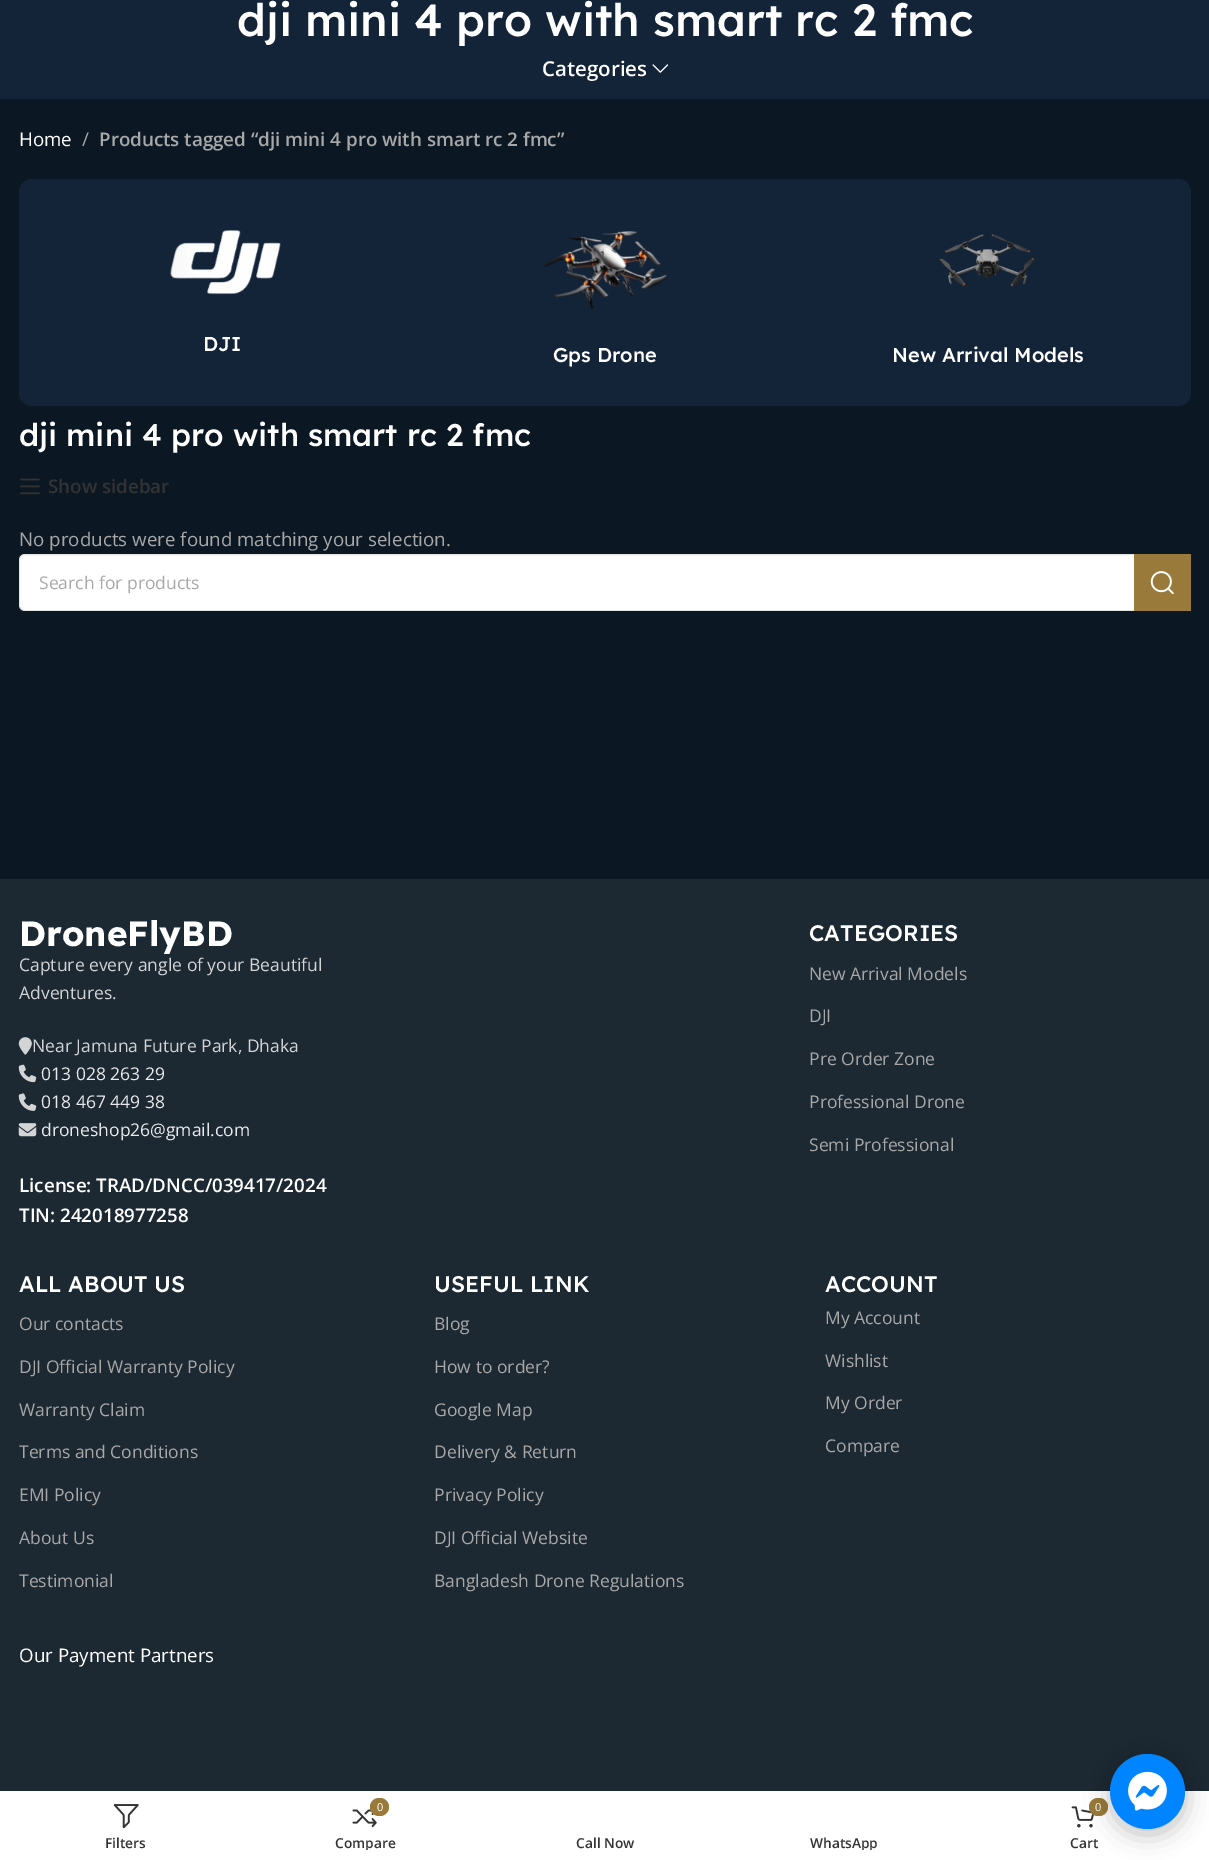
%!PS
<< /PageSize [1209 1860] /PageUsesTransparency true >> setpagedevice
/rgb { dup -16 bitshift 255 div exch dup -8 bitshift 255 and 255 div exch 255 and 255 div setrgbcolor } def
/font { [ exch dup neg 0 0 3 -1 roll 0 0 ] selectfont } def
/text { moveto show } def
/alpha { dup .setfillconstantalpha .setstrokeconstantalpha } def
/circle { newpath 0 360 arc closepath } def
/roundrect { 5 dict begin { /r /h /w /y /x } { exch def } forall
  x r add y moveto x w add y 2 copy h add r arct x w add y h add x 1 index r arct
  x y h add x y r arct x y 2 copy exch w add exch r arct closepath end } def
/shadow { 12 dict begin { /a /b /q /h /w /y /x } { exch def } forall gsave /was 0 def
  9 -2 -9 { dup b mul 4 div /e exch def 1 sub .425 mul 2.718 exch exp 1 add a .99 .min exch div /now exch def
    1 1 now sub 1 was sub div sub alpha /was now def
    w h .min e 2 mul add 0 gt { x e sub y e sub w e 2 mul add h e 2 mul add
      q e add b .6 mul add w h .min 2 div e add .min 0 .max roundrect fill } if } for grestore end } def
/picture { 5 dict begin { /h /w /y /x /name } { exch def } forall
  gsave x y translate w h scale
  w h 8 [w 0 0 h 0 0] name (r) file false 3 colorimage grestore end } def
0 .pushpdf14devicefilter
0 1860 translate 1 -1 scale
4 setmiterlimit
/s1 { /LexendDeca-Medium 45 font 16#FFFFFF rgb } def
/s2 { /OpenSans-SemiBold 20.5 font 16#FFFFFF rgb } def
/s3 { /OpenSans-Regular 18.75 font 16#FFFFFF rgb } def
/s4 { /OpenSans-Regular 18.75 font 16#A8A8A8 rgb } def
/s5 { /OpenSans-SemiBold 18.75 font 16#A8A8A8 rgb } def
/s6 { /LexendDeca-Medium 20 font 16#FFFFFF rgb } def
/s7 { /LexendDeca-Medium 31.25 font 16#FFFFFF rgb } def
/s8 { /OpenSans-SemiBold 18.75 font 16#333333 rgb } def
/s9 { /OpenSans-Regular 17.5 font 16#A8A8A8 rgb } def
/s10 { /LexendDeca-Bold 35 font 16#FFFFFF rgb } def
/s11 { /OpenSans-Regular 17.5 font 16#D2D4D6 rgb } def
/s12 { /OpenSans-Regular 17.5 font 16#E8EAEB rgb } def
/s13 { /OpenSans-SemiBold 18.75 font 16#FFFFFF rgb } def
/s14 { /LexendDeca-Medium 22.5 font 16#FFFFFF rgb } def
/s15 { /OpenSans-SemiBold 13.75 font 16#333333 rgb } def
/s16 { /OpenSans-Regular 11 font 16#FFFFFF rgb } def
16#0B1722 rgb
0 0 1209 1860 rectfill
16#132439 rgb
0 0 1209 99 rectfill
s1
(dji mini 4 pro with smart rc 2 fmc) 237 36 text
s2
(Categories) 542 76 text
(pic1.raw) 652 64 17 9 picture
s3
(Home) 19 146 text
s4
(/) 82 146 text
s5
(Products tagged “dji mini 4 pro with smart rc 2 fmc”) 99 146 text
16#132439 rgb
19 179 1172 227 13 roundrect fill
(pic2.raw) 170 230 111 65 picture
s6
(DJI) 203 351 text
(pic3.raw) 543 231 124 78 picture
(Gps Drone) 553 362 text
(pic4.raw) 939 234 96 53 picture
(New Arrival Models) 892 362 text
s7
(dji mini 4 pro with smart rc 2 fmc) 19 446 text
(pic5.raw) 20 478 20 17 picture
s8
(Show sidebar) 48 493 text
s4
(No products were found matching your selection.) 19 546 text
16#FFFFFF rgb
19 554 1172 57 6 roundrect fill
0.1 alpha
16#000000 rgb
19.5 554.5 1171 56 5.5 roundrect stroke
1 alpha
s9
(Search for products) 39 589 text
16#997A3A rgb
1134 554 57 57 rectfill
(pic6.raw) 1150 571 24 24 picture
16#1C2832 rgb
0 879 1209 912 rectfill
s10
(DroneFlyBD) 19 946 text
s11
(Capture every angle of your Beautiful) 19 971 text
(Adventures.) 19 999 text
(pic7.raw) 18 1037 14 18 picture
(Near Jamuna Future Park, Dhaka) 32 1052 text
(pic8.raw) 18 1064 19 19 picture
s12
(013 028 263 29) 41 1080 text
(pic9.raw) 18 1093 19 18 picture
(018 467 449 38) 41 1108 text
(pic10.raw) 18 1123 19 14 picture
(droneshop26@gmail.com) 41 1136 text
s13
(License: TRAD/DNCC/039417/2024) 19 1192 text
(TIN: 242018977258) 19 1222 text
s14
(CATEGORIES) 809 941 text
s9
(New Arrival Models) 809 980 text
(DJI) 809 1022 text
(Pre Order Zone) 809 1065 text
(Professional Drone) 809 1108 text
(Semi Professional) 809 1151 text
s14
(ALL ABOUT US) 19 1292 text
s9
(Our contacts) 19 1330 text
(DJI Official Warranty Policy) 19 1373 text
(Warranty Claim) 19 1416 text
(Terms and Conditions) 19 1458 text
(EMI Policy) 19 1501 text
(About Us) 19 1544 text
(Testimonial) 19 1587 text
s14
(USEFUL LINK) 434 1292 text
s9
(Blog) 434 1330 text
(How to order?) 434 1373 text
(Google Map) 434 1416 text
(Delivery & Return) 434 1458 text
(Privacy Policy) 434 1501 text
(DJI Official Website) 434 1544 text
(Bangladesh Drone Regulations) 434 1587 text
s14
(ACCOUNT) 825 1292 text
s9
(My Account) 825 1324 text
(Wishlist) 825 1367 text
(My Order) 825 1409 text
(Compare) 825 1452 text
s3
(Our Payment Partners) 19 1662 text
0 1791 1209 69 rectfill
(pic11.raw) 113 1804 26 25 picture
s15
(Filters) 105 1848 text
(pic12.raw) 352 1809 25 19 picture
16#997A3A rgb
370 1798 19 18 9 roundrect fill
s16
(0) 377 1811 text
gsave
259 1834 214 16 rectclip
s15
(Compare) 335 1848 text
grestore
s15
(Call Now) 576 1848 text
gsave
738 1834 213 16 rectclip
(WhatsApp) 810 1848 text
grestore
(pic13.raw) 1071 1806 23 22 picture
16#997A3A rgb
1089 1798 19 18 9 roundrect fill
s16
(0) 1095 1811 text
s15
(Cart) 1070 1848 text
16#000000 rgb
1110 1759 75 75 37.5 12.5 0.25 shadow
16#0084FF rgb
1147.5 1791.5 37.5 circle fill
(pic14.raw) 1128 1771 39 40 picture
.poppdf14devicefilter showpage
